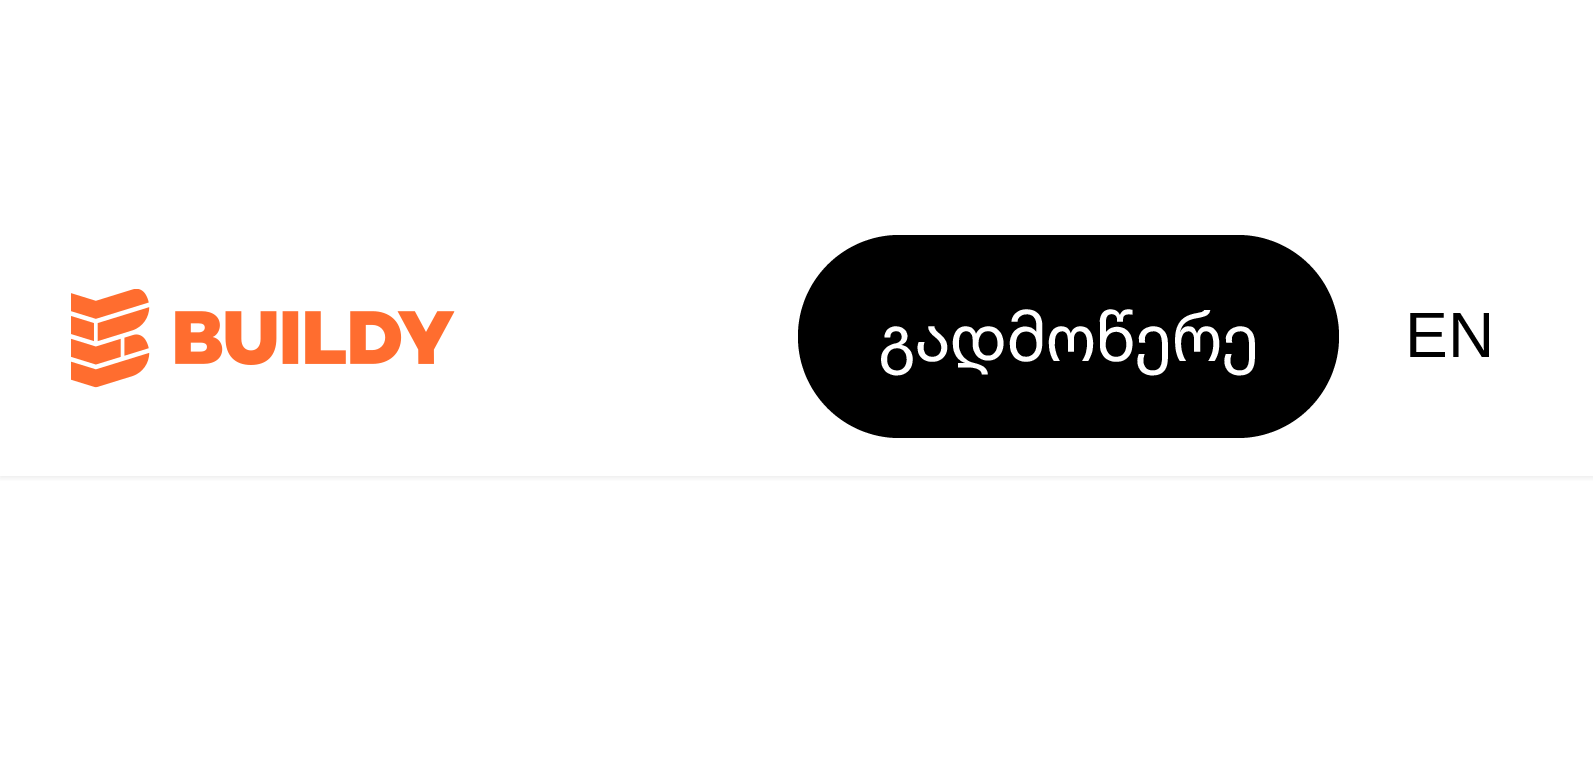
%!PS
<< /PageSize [1593 763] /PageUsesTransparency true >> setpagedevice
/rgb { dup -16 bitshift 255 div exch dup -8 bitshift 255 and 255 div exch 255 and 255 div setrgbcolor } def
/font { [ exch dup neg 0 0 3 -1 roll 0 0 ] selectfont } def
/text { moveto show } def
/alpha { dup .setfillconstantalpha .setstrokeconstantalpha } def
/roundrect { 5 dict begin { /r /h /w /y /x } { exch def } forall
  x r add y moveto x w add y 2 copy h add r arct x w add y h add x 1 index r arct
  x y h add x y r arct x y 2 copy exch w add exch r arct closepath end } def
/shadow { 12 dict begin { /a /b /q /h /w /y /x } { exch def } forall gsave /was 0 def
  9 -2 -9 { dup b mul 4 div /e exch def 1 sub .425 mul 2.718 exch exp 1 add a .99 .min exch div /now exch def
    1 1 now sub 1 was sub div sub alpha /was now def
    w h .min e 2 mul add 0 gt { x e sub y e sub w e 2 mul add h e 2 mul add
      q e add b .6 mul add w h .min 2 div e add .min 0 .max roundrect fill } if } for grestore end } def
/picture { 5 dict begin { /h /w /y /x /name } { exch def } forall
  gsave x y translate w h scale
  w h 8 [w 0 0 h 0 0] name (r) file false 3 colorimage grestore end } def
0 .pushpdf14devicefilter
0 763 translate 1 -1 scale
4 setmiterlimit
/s1 { /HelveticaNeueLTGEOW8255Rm-Regular 68 font 16#FFFFFF rgb } def
/s2 { /LiberationSans-Regular 64 font 16#000000 rgb } def
16#FFFFFF rgb
0 0 1593 763 rectfill
gsave
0 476 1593 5 rectclip
16#BABABA rgb
0 2 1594 476 0 2.5 0.25 shadow
grestore
(pic1.raw) 71 289 384 99 picture
16#000000 rgb
798 235 541 203 101.5 roundrect fill
s1
(გადმოწერე) 879 361 text
s2
(EN) 1405 357 text
.poppdf14devicefilter showpage
